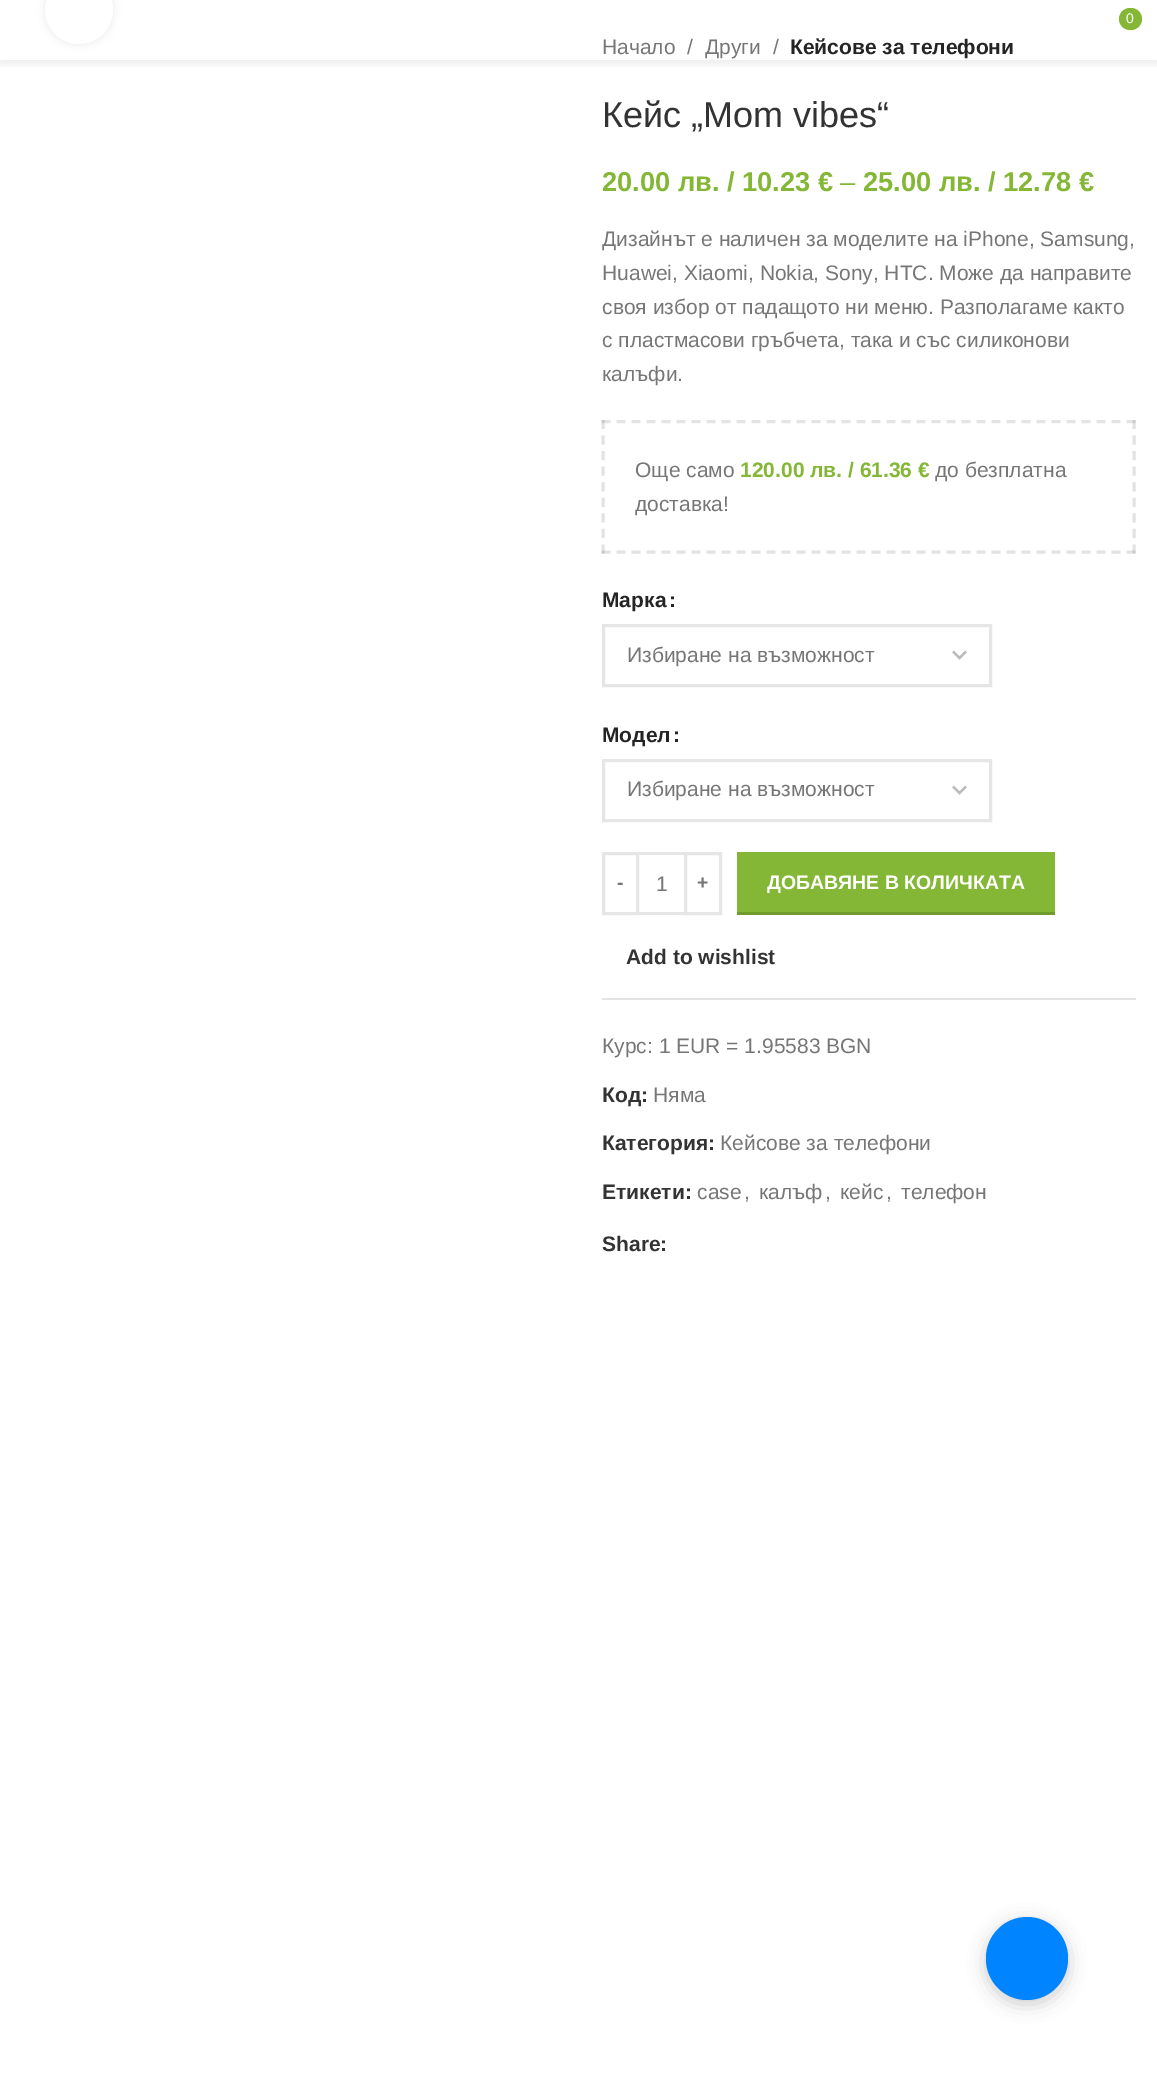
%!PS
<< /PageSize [1157 2089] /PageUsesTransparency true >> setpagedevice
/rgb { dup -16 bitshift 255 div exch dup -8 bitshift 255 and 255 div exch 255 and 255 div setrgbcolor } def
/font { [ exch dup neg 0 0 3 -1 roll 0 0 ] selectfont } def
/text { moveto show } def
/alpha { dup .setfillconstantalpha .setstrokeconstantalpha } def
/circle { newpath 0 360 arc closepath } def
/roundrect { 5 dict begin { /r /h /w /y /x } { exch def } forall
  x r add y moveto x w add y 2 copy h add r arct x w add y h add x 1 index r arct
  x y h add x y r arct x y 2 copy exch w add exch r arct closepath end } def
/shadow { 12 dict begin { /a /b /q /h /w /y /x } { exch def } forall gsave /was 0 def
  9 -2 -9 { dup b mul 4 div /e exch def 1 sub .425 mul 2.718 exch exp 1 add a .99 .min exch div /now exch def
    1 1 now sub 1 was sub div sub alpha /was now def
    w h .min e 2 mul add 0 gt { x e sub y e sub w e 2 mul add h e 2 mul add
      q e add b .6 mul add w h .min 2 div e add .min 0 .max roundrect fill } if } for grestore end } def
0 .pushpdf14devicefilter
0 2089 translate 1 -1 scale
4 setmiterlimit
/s1 { /LiberationSans-Regular 14 font 16#FFFFFF rgb } def
/s2 { /LiberationSans-Regular 21 font 16#767676 rgb } def
/s3 { /LiberationSans-Bold 21 font 16#242424 rgb } def
/s4 { /LiberationSans-Regular 36 font 16#333333 rgb } def
/s5 { /LiberationSans-Bold 27.25 font 16#83B735 rgb } def
/s6 { /LiberationSans-Regular 27.25 font 16#83B735 rgb } def
/s7 { /LiberationSans-Bold 21 font 16#83B735 rgb } def
/s8 { /LiberationSans-Bold 19.5 font 16#767676 rgb } def
/s9 { /LiberationSans-Bold 19.5 font 16#FFFFFF rgb } def
/s10 { /LiberationSans-Bold 21 font 16#333333 rgb } def
16#FFFFFF rgb
0 0 1157 2089 rectfill
16#000000 rgb
45 -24 68 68 34 4 0.08 shadow
16#FFFFFF rgb
79 10 34 circle fill
gsave
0 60 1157 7 rectclip
16#000000 rgb
0 2 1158 60 0 6 0.1 shadow
grestore
16#83B735 rgb
1119 8 23 22 11 roundrect fill
s1
(0) 1126 23 text
s2
(Начало) 602 54 text
(/) 687 54 text
(Други) 705 54 text
(/) 773 54 text
s3
(Кейсове за телефони) 790 54 text
s4
(Кейс „Mom vibes“) 602 127 text
s5
(20.00 лв. / 10.23 €) 602 191 text
s6
(–) 840 191 text
s5
(25.00 лв. / 12.78 €) 863 191 text
s2
(Дизайнът е наличен за моделите на iPhone, Samsung,) 602 246 text
(Huawei, Xiaomi, Nokia, Sony, HTC. Може да направите) 602 280 text
(своя избор от падащото ни меню. Разполагаме както) 602 314 text
(с пластмасови гръбчета, така и със силиконови) 602 347 text
(калъфи.) 602 381 text
16#E4E4E4 rgb
3 setlinewidth
[9 6] 0 setdash
601.5 421.5 moveto 1135.5 421.5 lineto stroke
0.11 alpha
16#000000 rgb
[9 6.57] 0 setdash
1134 420 moveto 1134 553.5 lineto stroke
[9 6] 0 setdash
601.5 552 moveto 1135.5 552 lineto stroke
[9 6.57] 0 setdash
603 420 moveto 603 553.5 lineto stroke
1 alpha
s2
(Още само) 635 477 text
s7
(120.00 лв. / 61.36 €) 740 477 text
s2
(до безплатна) 935 477 text
(доставка!) 635 511 text
s3
(Марка) 602 607 text
(:) 669 607 text
16#BBBBBB rgb
2.2 setlinewidth
[] 0 setdash
953 651.5 moveto 959.5 658 lineto 966 651.5 lineto stroke
16#E6E6E6 rgb
3 setlinewidth
603.5 625.5 387 60 rectstroke
s2
(Избиране на възможност) 627 662 text
s3
(Модел) 602 742 text
(:) 673 742 text
16#BBBBBB rgb
2.2 setlinewidth
953 786.5 moveto 959.5 793 lineto 966 786.5 lineto stroke
16#E6E6E6 rgb
3 setlinewidth
603.5 760.5 387 60 rectstroke
s2
(Избиране на възможност) 627 796 text
16#E6E6E6 rgb
603.5 853.5 34 60 rectstroke
s8
(-) 617 889 text
16#E6E6E6 rgb
639 852 45 3 rectfill
639 912 45 3 rectfill
s2
(1) 656 891 text
16#E6E6E6 rgb
685.5 853.5 35 60 rectstroke
s8
(+) 697 889 text
16#83B735 rgb
737 852 318 60 rectfill
16#6F9C2D rgb
737 912 318 3 rectfill
s9
(ДОБАВЯНЕ В КОЛИЧКАТА) 767 889 text
s10
(Add to wishlist) 626 964 text
16#E4E4E4 rgb
602 998 534 2 rectfill
s2
(Курс: 1 EUR = 1.95583 BGN) 602 1053 text
s10
(Код:) 602 1102 text
s2
(Няма) 653 1102 text
s10
(Категория:) 602 1150 text
s2
(Кейсове за телефони) 720 1150 text
s10
(Етикети:) 602 1199 text
s2
(case) 697 1199 text
(,) 744 1199 text
(калъф) 759 1199 text
(,) 825 1199 text
(кейс) 840 1199 text
(,) 886 1199 text
(телефон) 901 1199 text
s10
(Share:) 602 1251 text
16#000000 rgb
986 1922 82 82 41 9 0.2 shadow
16#0084FF rgb
986 1917 82 83 41 roundrect fill
.poppdf14devicefilter showpage
